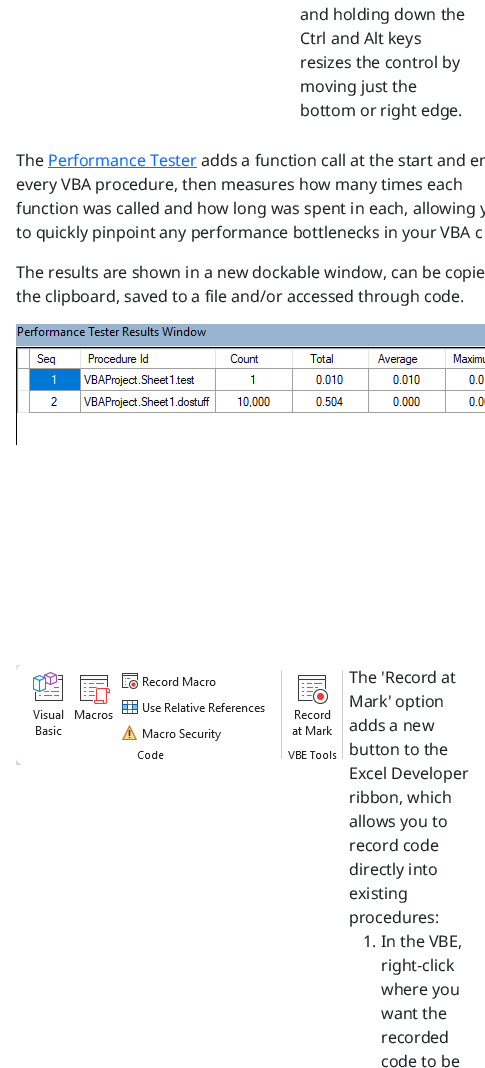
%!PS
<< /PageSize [485 1068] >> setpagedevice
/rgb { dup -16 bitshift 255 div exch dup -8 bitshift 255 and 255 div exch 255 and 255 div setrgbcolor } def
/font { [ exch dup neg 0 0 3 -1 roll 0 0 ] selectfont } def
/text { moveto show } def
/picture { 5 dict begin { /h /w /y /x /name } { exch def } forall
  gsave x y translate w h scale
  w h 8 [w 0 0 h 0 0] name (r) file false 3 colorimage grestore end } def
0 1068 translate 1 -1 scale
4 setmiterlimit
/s1 { /NotoSans-Regular 16 font 16#212529 rgb } def
/s2 { /NotoSans-Regular 16 font 16#0D6EFD rgb } def
16#FFFFFF rgb
0 0 485 1068 rectfill
s1
(and holding down the) 300 20 text
(Ctrl and Alt keys) 300 44 text
(resizes the control by) 300 68 text
(moving just the) 300 92 text
(bottom or right edge.) 300 116 text
(The) 16 166 text
s2
(Performance Tester) 48 166 text
48 167 149 1 rectfill
s1
(adds a function call at the start and en) 201 166 text
(every VBA procedure, then measures how many times each) 16 190 text
(function was called and how long was spent in each, allowing y) 16 214 text
(to quickly pinpoint any performance bottlenecks in your VBA c) 16 238 text
(The results are shown in a new dockable window, can be copie) 16 278 text
(the clipboard, saved to a file and/or accessed through code.) 16 302 text
(pic1.raw) 16 324 469 121 picture
(pic2.raw) 16 665 327 100 picture
(The 'Record at) 349 683 text
(Mark' option) 349 707 text
(adds a new) 349 731 text
(button to the) 349 755 text
(Excel Developer) 349 779 text
(ribbon, which) 349 803 text
(allows you to) 349 827 text
(record code) 349 851 text
(directly into) 349 875 text
(existing) 349 899 text
(procedures:) 349 923 text
(1. In the VBE,) 363 947 text
(right-click) 381 971 text
(where you) 381 995 text
(want the) 381 1019 text
(recorded) 381 1043 text
(code to be) 381 1067 text
showpage
